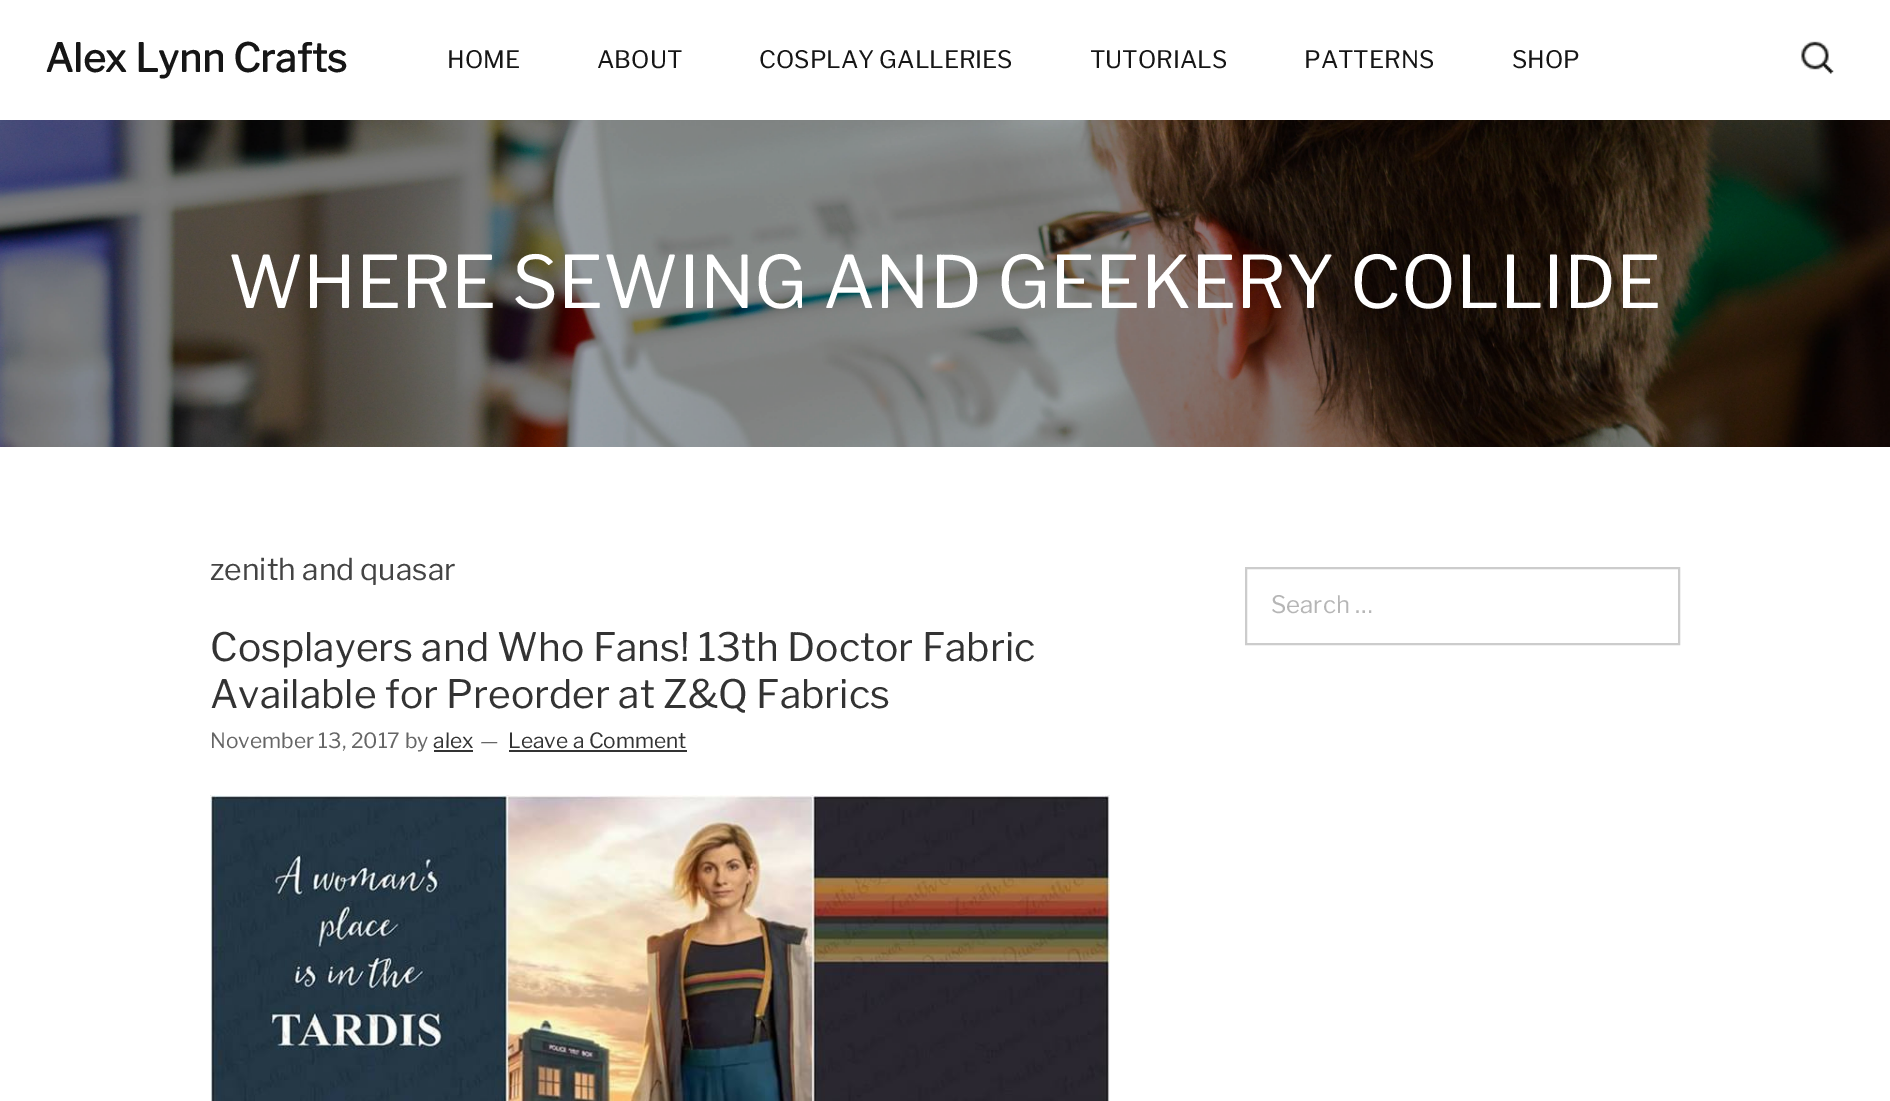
%!PS
<< /PageSize [1890 1101] /PageUsesTransparency true >> setpagedevice
/rgb { dup -16 bitshift 255 div exch dup -8 bitshift 255 and 255 div exch 255 and 255 div setrgbcolor } def
/font { [ exch dup neg 0 0 3 -1 roll 0 0 ] selectfont } def
/text { moveto show } def
/alpha { dup .setfillconstantalpha .setstrokeconstantalpha } def
/picture { 5 dict begin { /h /w /y /x /name } { exch def } forall
  gsave x y translate w h scale
  w h 8 [w 0 0 h 0 0] name (r) file false 3 colorimage grestore end } def
0 .pushpdf14devicefilter
0 1101 translate 1 -1 scale
4 setmiterlimit
/s1 { /LibreFranklin-Bold 39 font 16#161616 rgb } def
/s2 { /LibreFranklin-Regular 24 font 16#161616 rgb } def
/s3 { /LibreFranklin-Regular 72 font 16#FFFFFF rgb } def
/s4 { /LibreFranklin-Regular 30 font 16#444444 rgb } def
/s5 { /LibreFranklin-Regular 39 font 16#333333 rgb } def
/s6 { /LibreFranklin-Regular 21 font 16#666666 rgb } def
/s7 { /LibreFranklin-Regular 21 font 16#333333 rgb } def
/s8 { /LibreFranklin-Regular 24 font 16#B6B6B6 rgb } def
16#FFFFFF rgb
0 0 1890 1101 rectfill
(pic1.raw) 0 120 1890 327 picture
s1
(Alex Lynn Crafts) 45 72 text
s2
(HOME) 447 68 text
(ABOUT) 597 68 text
(COSPLAY GALLERIES) 759 68 text
(TUTORIALS) 1090 68 text
(PATTERNS) 1304 68 text
(SHOP) 1512 68 text
(pic2.raw) 1801 41 33 33 picture
0.3 alpha
16#000000 rgb
0 120 1890 327 rectfill
1 alpha
s3
(WHERE SEWING AND GEEKERY COLLIDE) 228 308 text
s4
(zenith and quasar) 210 580 text
s5
(Cosplayers and Who Fans! 13th Doctor Fabric) 210 661 text
(Available for Preorder at Z&Q Fabrics) 210 708 text
s6
(November 13, 2017 by) 210 748 text
s7
(alex) 433 748 text
434 750 39 2 rectfill
s6
(—) 480 748 text
s7
(Leave a Comment) 508 748 text
509 750 178 2 rectfill
(pic3.raw) 210 795 900 306 picture
16#CCCCCC rgb
2 setlinewidth
1246 568 433 76 rectstroke
s8
(Search …) 1271 613 text
.poppdf14devicefilter showpage
